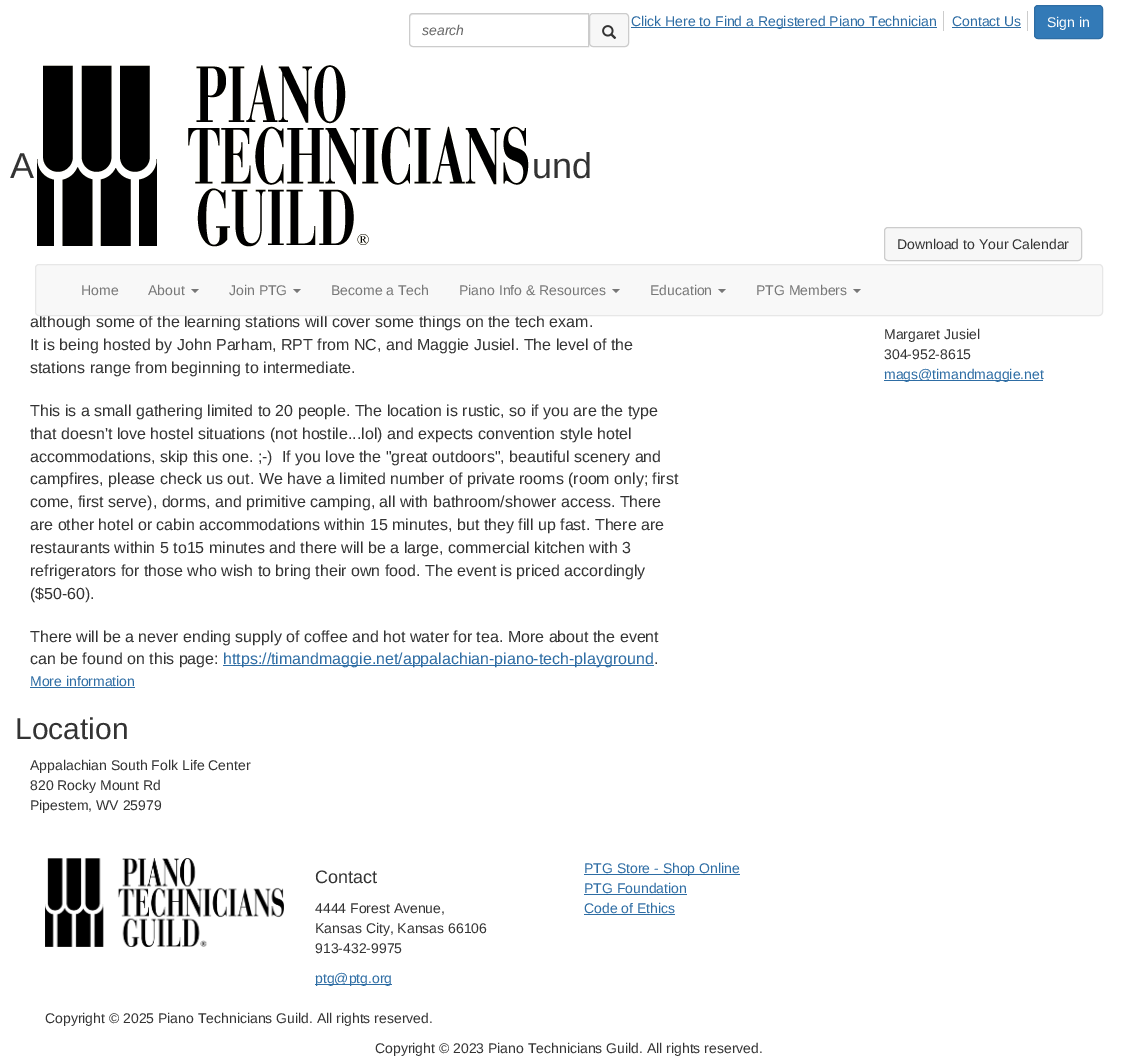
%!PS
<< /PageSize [1138 1056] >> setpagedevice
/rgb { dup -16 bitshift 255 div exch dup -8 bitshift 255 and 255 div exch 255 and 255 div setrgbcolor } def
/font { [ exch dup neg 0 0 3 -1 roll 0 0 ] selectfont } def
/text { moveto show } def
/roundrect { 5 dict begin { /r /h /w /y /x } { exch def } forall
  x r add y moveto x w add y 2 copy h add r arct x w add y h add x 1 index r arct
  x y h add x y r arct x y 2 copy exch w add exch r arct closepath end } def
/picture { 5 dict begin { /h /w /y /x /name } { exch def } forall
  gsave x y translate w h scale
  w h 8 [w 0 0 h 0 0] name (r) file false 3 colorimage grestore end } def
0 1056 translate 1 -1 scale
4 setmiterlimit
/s1 { /LiberationSans-Italic 14 font 16#666666 rgb } def
/s2 { /LiberationSans-Regular 14 font 16#2E6DA4 rgb } def
/s3 { /LiberationSans-Regular 14 font 16#FFFFFF rgb } def
/s4 { /LiberationSans-Regular 16 font 16#333333 rgb } def
/s5 { /LiberationSans-Regular 14 font 16#777777 rgb } def
/s6 { /LiberationSans-Regular 36 font 16#333333 rgb } def
/s7 { /LiberationSans-Regular 16 font 16#2E6DA4 rgb } def
/s8 { /LiberationSans-Regular 30 font 16#333333 rgb } def
/s9 { /LiberationSans-Regular 14 font 16#333333 rgb } def
/s10 { /LiberationSans-Regular 18 font 16#333333 rgb } def
16#FFFFFF rgb
0 0 1138 1056 rectfill
16#ECECEC rgb
413 15 moveto 588 15 lineto 588 14 lineto 412 14 lineto 410 15 410 16 410 18 curveto 410 16 411 15 413 15 curveto closepath fill
16#CCCCCC rgb
413 13.5 moveto 588.5 13.5 lineto 588.5 46.5 lineto 413 46.5 lineto 411 46.5 409.5 45 409.5 43 curveto 409.5 17 lineto 409.5 15 411 13.5 413 13.5 curveto closepath stroke
s1
(search) 422 35 text
16#F7F7F7 rgb
589.5 13.5 39 33 3.5 roundrect gsave fill grestore
16#CCCCCC rgb
stroke
(pic1.raw) 602 25 15 14 picture
943 11 1 20 rectfill
16#2E6DA4 rgb
631 27 306 1 rectfill
s2
(Click Here to Find a Registered Piano Technician) 631 26 text
16#CCCCCC rgb
1027 11 1 20 rectfill
s2
(Contact Us) 952 26 text
952 27 69 1 rectfill
16#337AB7 rgb
1034.5 5.5 68 33 3.5 roundrect gsave fill grestore
16#2E6DA4 rgb
stroke
s3
(Sign in) 1047 27 text
(pic2.raw) 35 65 496 184 picture
s4
(although some of the learning stations will cover some things on the tech exam.) 30 327 text
16#F8F8F8 rgb
35.5 264.5 1067 51 3.5 roundrect gsave fill grestore
16#E7E7E7 rgb
stroke
s5
(Home) 81 295 text
(About) 148 295 text
191 289 moveto 199 289 lineto 195 293 lineto closepath fill
(Join PTG) 229 295 text
293 289 moveto 301 289 lineto 297 293 lineto closepath fill
(Become a Tech) 331 295 text
(Piano Info & Resources) 459 295 text
612 289 moveto 620 289 lineto 616 293 lineto closepath fill
(Education) 650 295 text
718 289 moveto 726 289 lineto 722 293 lineto closepath fill
(PTG Members) 756 295 text
853 289 moveto 861 289 lineto 857 293 lineto closepath fill
s6
(A) 10 178 text
(und) 532 178 text
s4
(It is being hosted by John Parham, RPT from NC, and Maggie Jusiel. The level of the) 30 350 text
(stations range from beginning to intermediate.) 30 373 text
(This is a small gathering limited to 20 people. The location is rustic, so if you are the type) 30 416 text
(that doesn't love hostel situations \(not hostile...lol\) and expects convention style hotel) 30 439 text
(accommodations, skip this one. ;-\)  If you love the "great outdoors", beautiful scenery and) 30 462 text
(campfires, please check us out. We have a limited number of private rooms \(room only; first) 30 484 text
(come, first serve\), dorms, and primitive camping, all with bathroom/shower access. There) 30 507 text
(are other hotel or cabin accommodations within 15 minutes, but they fill up fast. There are) 30 530 text
(restaurants within 5 to15 minutes and there will be a large, commercial kitchen with 3) 30 553 text
(refrigerators for those who wish to bring their own food. The event is priced accordingly) 30 576 text
(\($50-60\).) 30 599 text
(There will be a never ending supply of coffee and hot water for tea. More about the event) 30 642 text
(can be found on this page:) 30 664 text
16#2E6DA4 rgb
223 665 431 1 rectfill
(https://timandmaggie.net/appalachian-piano-tech-playground) 223 664 text
s4
(.) 654 664 text
s2
(More information) 30 686 text
30 687 105 1 rectfill
s8
(Location) 15 739 text
s9
(Appalachian South Folk Life Center) 30 770 text
(820 Rocky Mount Rd) 30 790 text
(Pipestem, WV 25979) 30 810 text
16#F7F7F7 rgb
884.5 227.5 197 33 3.5 roundrect gsave fill grestore
16#CCCCCC rgb
stroke
s9
(Download to Your Calendar) 897 249 text
(Margaret Jusiel) 884 339 text
(304-952-8615) 884 359 text
16#2E6DA4 rgb
884 380 159 1 rectfill
(mags@timandmaggie.net) 884 379 text
(pic3.raw) 45 858 239 89 picture
s10
(Contact) 315 883 text
s9
(4444 Forest Avenue,) 315 913 text
(Kansas City, Kansas 66106) 315 933 text
(913-432-9975) 315 953 text
16#2E6DA4 rgb
315 984 77 1 rectfill
(ptg@ptg.org) 315 983 text
584 874 156 1 rectfill
(PTG Store - Shop Online) 584 873 text
(PTG Foundation) 584 893 text
584 894 103 1 rectfill
(Code of Ethics) 584 913 text
584 914 91 1 rectfill
s9
(Copyright © 2025 Piano Technicians Guild. All rights reserved.) 45 1023 text
(Copyright © 2023 Piano Technicians Guild. All rights reserved.) 375 1053 text
showpage
